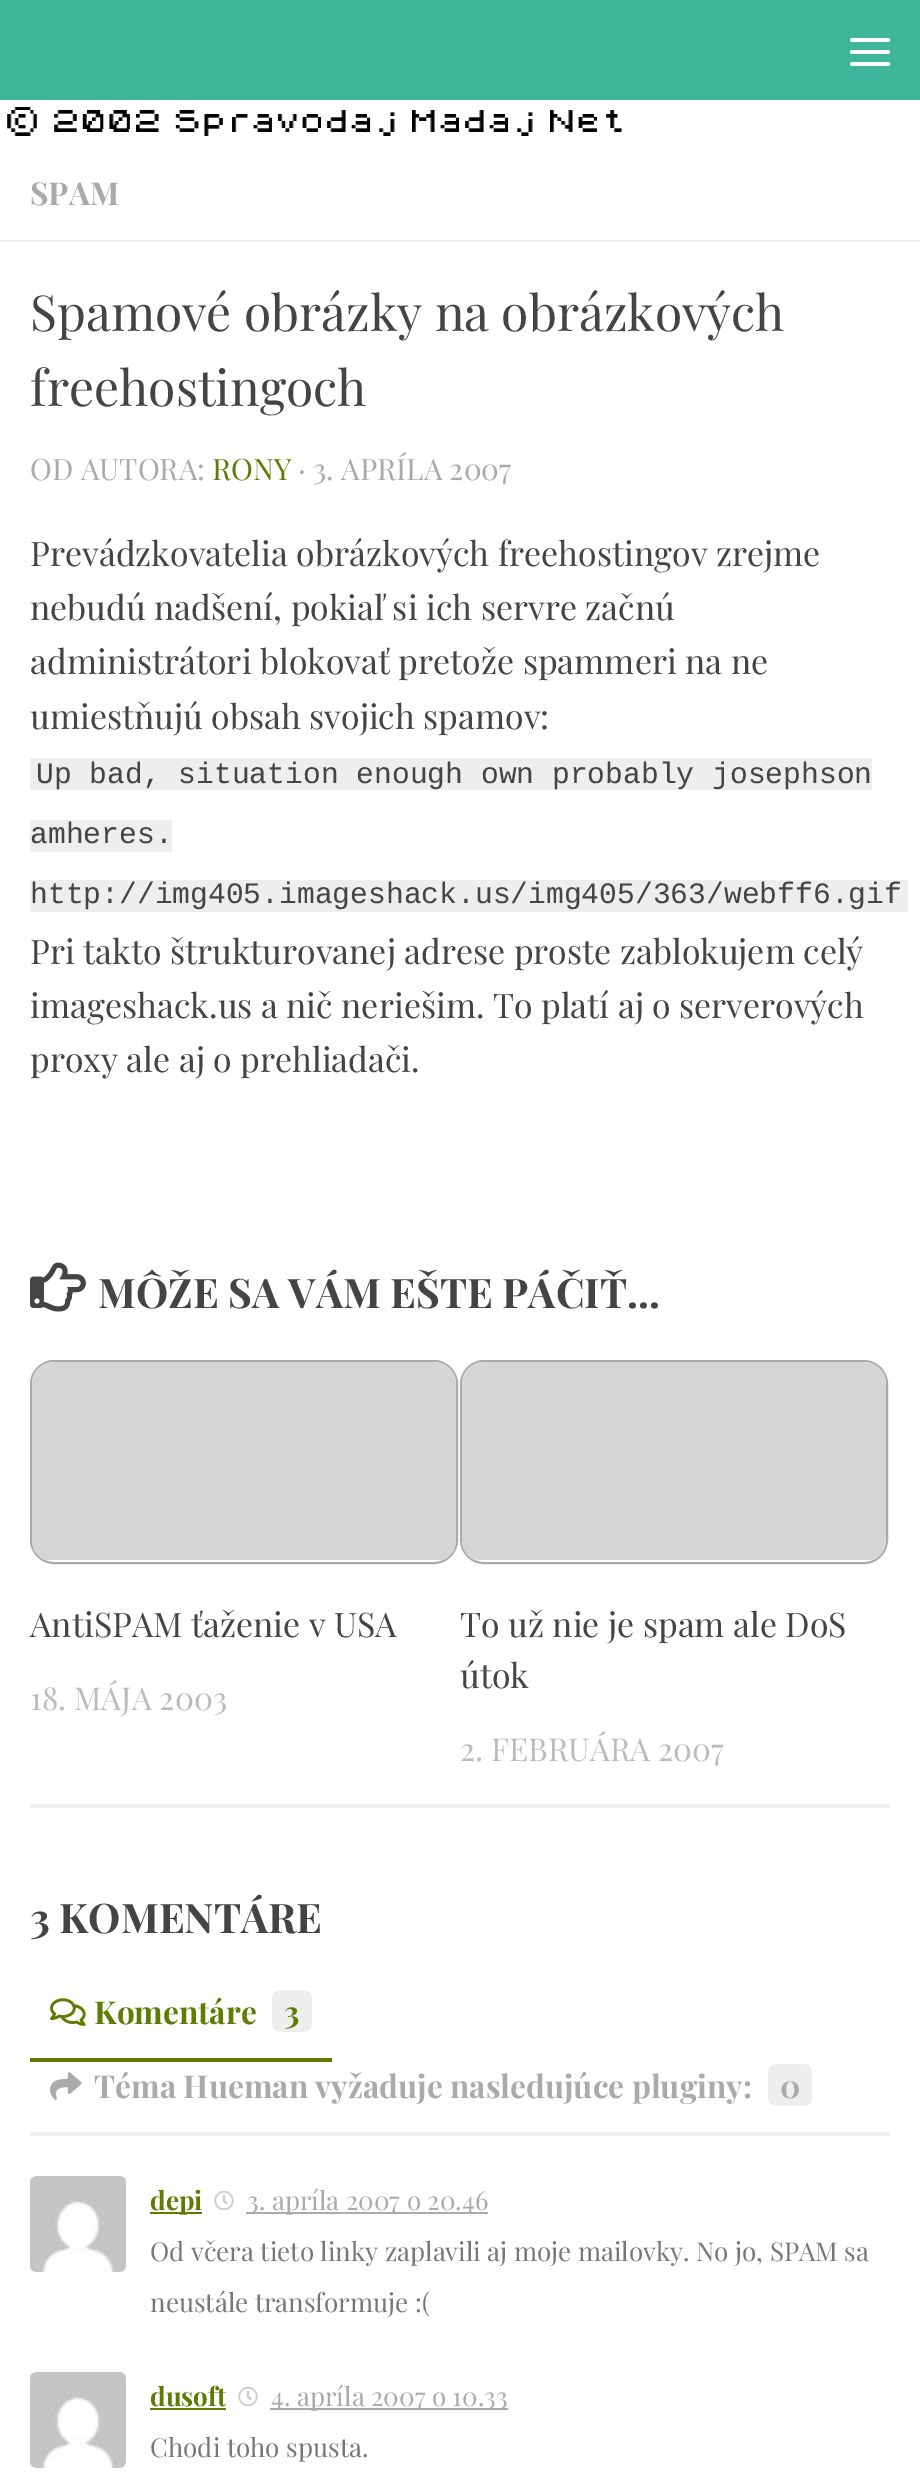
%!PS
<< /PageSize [920 2487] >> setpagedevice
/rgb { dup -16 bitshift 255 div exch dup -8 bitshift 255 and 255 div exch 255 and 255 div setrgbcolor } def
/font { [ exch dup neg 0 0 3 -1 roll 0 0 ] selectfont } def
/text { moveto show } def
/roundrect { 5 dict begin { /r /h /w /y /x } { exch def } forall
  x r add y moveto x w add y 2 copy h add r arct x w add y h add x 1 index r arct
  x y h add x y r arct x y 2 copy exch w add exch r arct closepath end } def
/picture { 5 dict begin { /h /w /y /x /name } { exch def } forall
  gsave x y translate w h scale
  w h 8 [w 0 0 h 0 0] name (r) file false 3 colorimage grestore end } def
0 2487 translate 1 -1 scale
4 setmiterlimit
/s1 { /PlayfairDisplay-Bold 31.6 font 16#AAAAAA rgb } def
/s2 { /PlayfairDisplay-Regular 49.75 font 16#444444 rgb } def
/s3 { /PlayfairDisplay-Regular 29.5 font 16#AAAAAA rgb } def
/s4 { /PlayfairDisplay-Regular 29.5 font 16#5E7C01 rgb } def
/s5 { /PlayfairDisplay-Regular 33.9 font 16#444444 rgb } def
/s6 { /LiberationMono-Regular 29.65 font 16#444444 rgb } def
/s7 { /PlayfairDisplay-Bold 40.75 font 16#444444 rgb } def
/s8 { /PlayfairDisplay-Regular 31.6 font 16#BBBBBB rgb } def
/s9 { /PlayfairDisplay-Bold 31.6 font 16#5E7C01 rgb } def
/s10 { /PlayfairDisplay-Bold 26 font 16#5E7C01 rgb } def
/s11 { /PlayfairDisplay-Regular 26 font 16#AAAAAA rgb } def
/s12 { /PlayfairDisplay-Regular 26 font 16#777777 rgb } def
16#FFFFFF rgb
0 0 920 2487 rectfill
16#3FB599 rgb
0 0 920 100 rectfill
16#FFFFFF rgb
850 38 40 4 2 roundrect fill
850 50 40 4 2 roundrect fill
850 62 40 4 2 roundrect fill
(pic1.raw) 7 107 615 29 picture
16#EEEEEE rgb
0 240 920 2 rectfill
s1
(SPAM) 30 205 text
s2
(Spamové obrázky na obrázkových) 30 331 text
(freehostingoch) 30 406 text
s3
(OD AUTORA:) 30 480 text
s4
(RONY) 212 480 text
s3
(· 3. APRÍLA 2007) 298 480 text
s5
(Prevádzkovatelia obrázkových freehostingov zrejme) 30 566 text
(nebudú nadšení, pokiaľ si ich servre začnú) 30 620 text
(administrátori blokovať pretože spammeri na ne) 30 674 text
(umiestňujú obsah svojich spamov:) 30 729 text
16#EEEEEE rgb
30 758 842 32 rectfill
s6
(Up bad, situation enough own probably josephson) 36 783 text
16#EEEEEE rgb
30 820 142 32 rectfill
s6
(amheres.) 30 843 text
16#EEEEEE rgb
30 880 878 32 rectfill
s6
(http://img405.imageshack.us/img405/363/webff6.gif) 30 903 text
s5
(Pri takto štrukturovanej adrese proste zablokujem celý) 30 964 text
(imageshack.us a nič neriešim. To platí aj o serverových) 30 1018 text
(proxy ale aj o prehliadači.) 30 1072 text
(pic2.raw) 30 1262 56 50 picture
s7
(MÔŽE SA VÁM EŠTE PÁČIŤ...) 98 1308 text
16#EEEEEE rgb
30 1804 860 4 rectfill
16#AAAAAA rgb
2 setlinewidth
31 1361 426 202 23 roundrect stroke
(pic3.raw) 32 1362 424 198 picture
s5
(AntiSPAM ťaženie v USA) 30 1637 text
s8
(18. MÁJA 2003) 30 1710 text
16#AAAAAA rgb
461 1361 426 202 23 roundrect stroke
(pic3.raw) 462 1362 424 198 picture
s5
(To už nie je spam ale DoS) 460 1637 text
(útok) 460 1688 text
s8
(2. FEBRUÁRA 2007) 460 1761 text
s7
(3 KOMENTÁRE) 30 1933 text
16#EEEEEE rgb
30 2132 860 4 rectfill
16#5E7C01 rgb
30 2058 302 4 rectfill
(pic4.raw) 50 1998 36 28 picture
s9
(Komentáre) 94 2024 text
16#EEEEEE rgb
272 1990 40 42 8 roundrect fill
s9
(3) 284 2024 text
(pic5.raw) 50 2072 32 28 picture
s1
(Téma Hueman vyžaduje nasledujúce pluginy:) 94 2098 text
16#EEEEEE rgb
768 2064 44 42 8 roundrect fill
s1
(0) 780 2098 text
(pic6.raw) 30 2176 96 96 picture
16#5E7C01 rgb
150 2212 52 2 rectfill
s10
(depi) 150 2210 text
(pic7.raw) 214 2190 20 21 picture
16#AAAAAA rgb
246 2212 242 2 rectfill
s11
(3. apríla 2007 o 20.46) 247 2210 text
s12
(Od včera tieto linky zaplavili aj moje mailovky. No jo, SPAM sa) 150 2261 text
(neustále transformuje :\() 150 2312 text
(pic6.raw) 30 2372 96 96 picture
s10
(dusoft) 150 2406 text
150 2408 76 2 rectfill
(pic7.raw) 238 2386 20 21 picture
16#AAAAAA rgb
270 2408 238 2 rectfill
s11
(4. apríla 2007 o 10.33) 271 2406 text
s12
(Chodi toho spusta.) 150 2457 text
showpage
